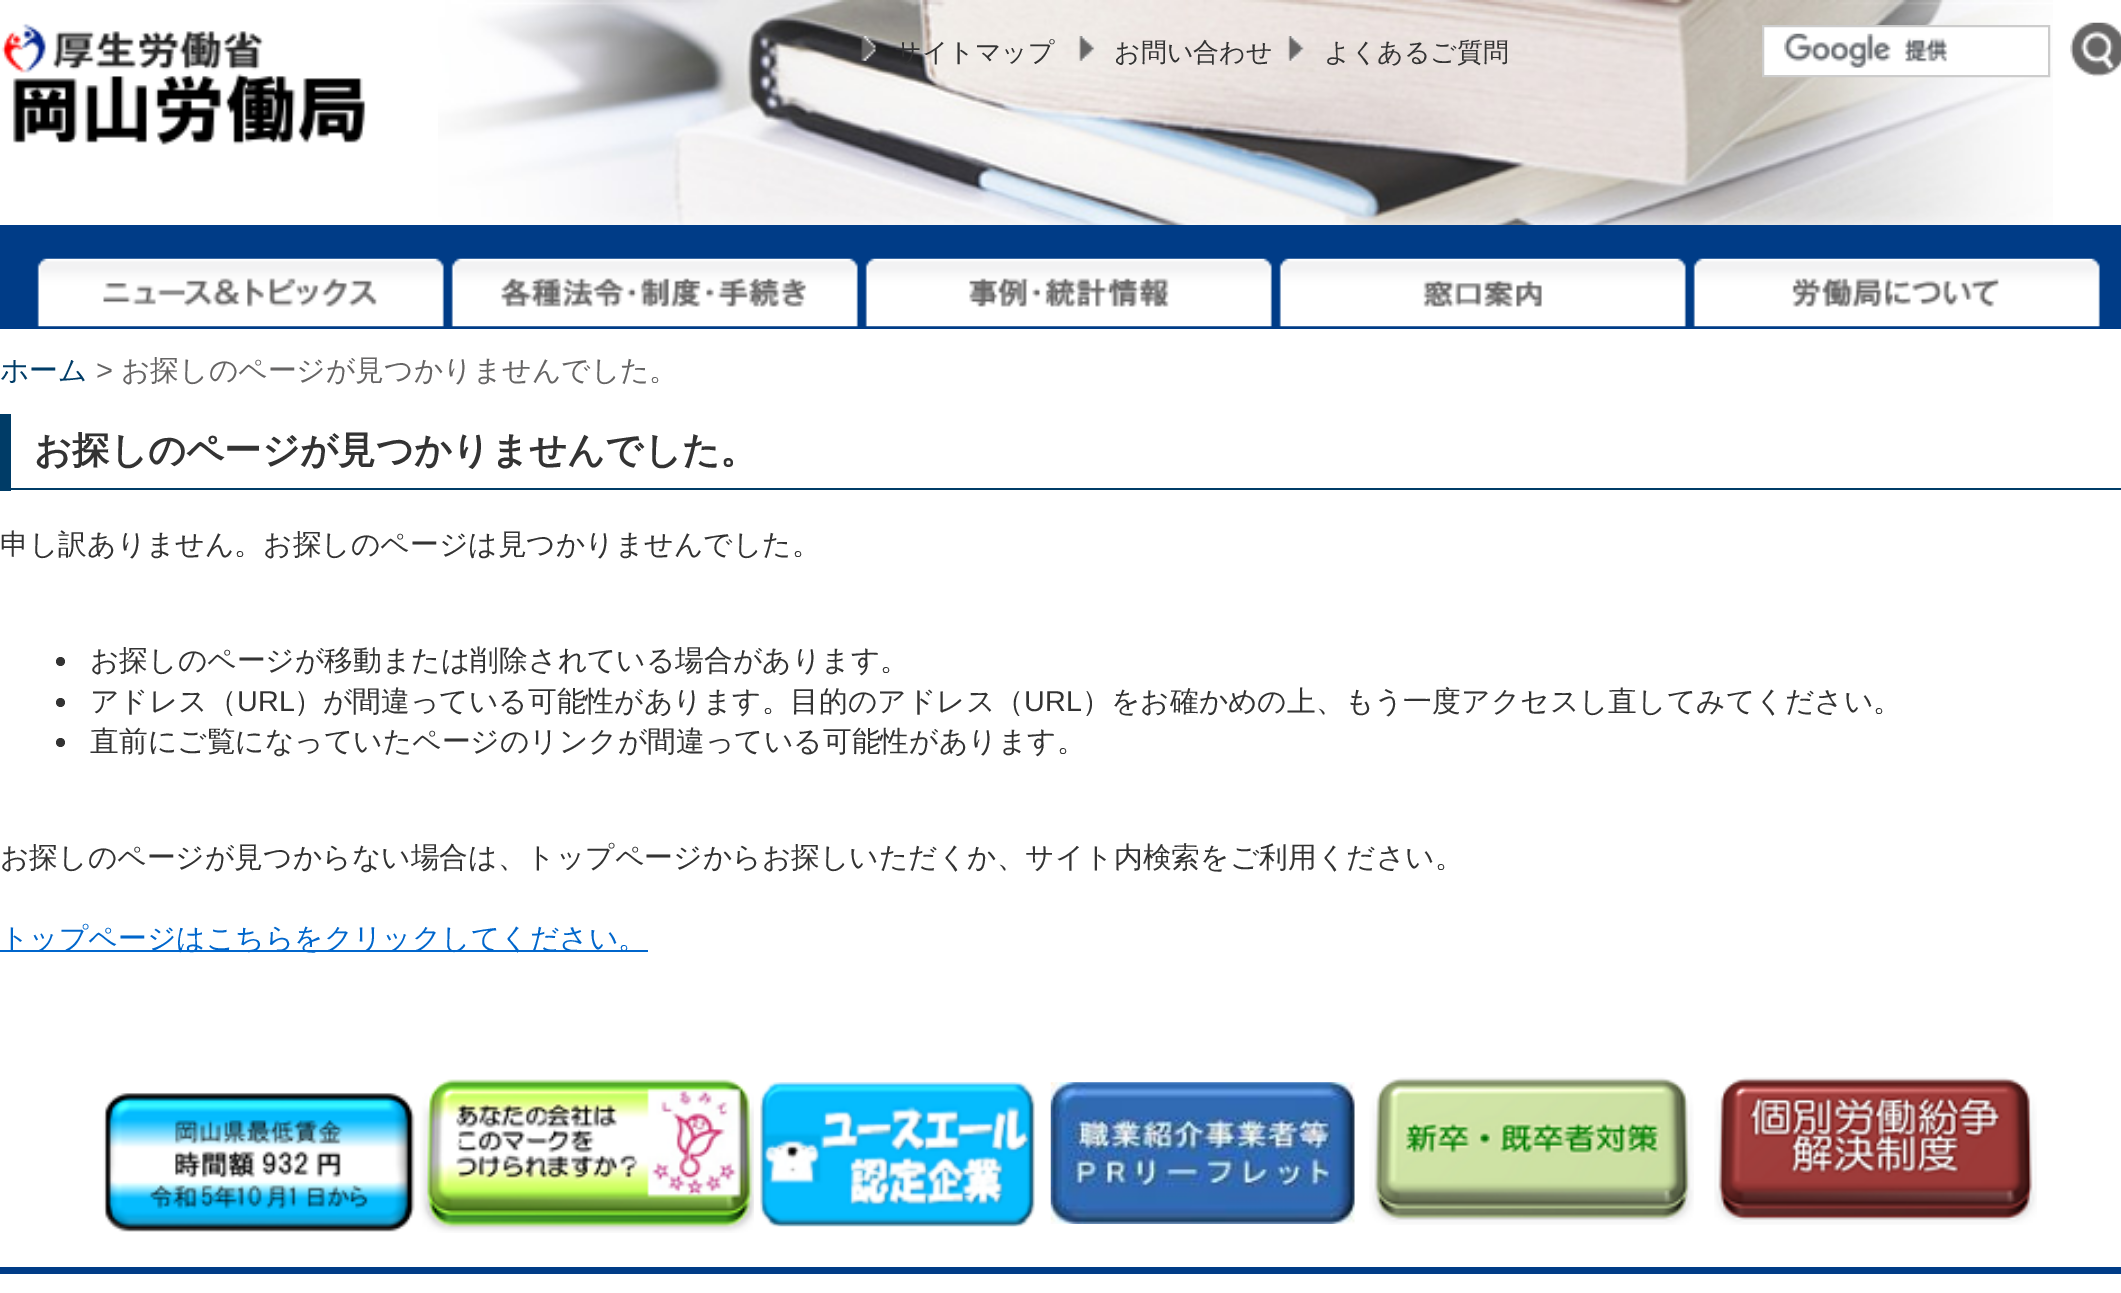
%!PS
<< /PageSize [2121 1293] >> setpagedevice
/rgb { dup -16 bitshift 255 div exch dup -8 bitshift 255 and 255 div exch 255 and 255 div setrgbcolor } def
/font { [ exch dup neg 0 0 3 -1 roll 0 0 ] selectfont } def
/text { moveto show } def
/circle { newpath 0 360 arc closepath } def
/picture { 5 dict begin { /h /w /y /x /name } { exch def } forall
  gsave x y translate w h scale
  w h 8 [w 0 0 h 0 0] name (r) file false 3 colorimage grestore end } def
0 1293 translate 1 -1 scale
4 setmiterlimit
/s1 { /WenQuanYiZenHei-Medium 26 font 16#333333 rgb } def
/s2 { /WenQuanYiZenHei-Medium 28.8 font 16#003C67 rgb } def
/s3 { /LiberationSans-Regular 28.8 font 16#666565 rgb } def
/s4 { /WenQuanYiZenHei-Medium 28.8 font 16#666565 rgb } def
/s5 { /WenQuanYiZenHei-Bold 37.4 font 16#333333 rgb } def
/s6 { /WenQuanYiZenHei-Medium 28.8 font 16#333333 rgb } def
/s7 { /LiberationSans-Regular 28.8 font 16#333333 rgb } def
/s8 { /WenQuanYiZenHei-Medium 28.8 font 16#0066CC rgb } def
16#FFFFFF rgb
0 0 2121 1293 rectfill
(pic1.raw) 438 0 1615 225 picture
(pic2.raw) 1 23 365 122 picture
(pic3.raw) 861 36 15 25 picture
s1
(サイトマップ) 895 61 text
(pic4.raw) 1079 36 16 25 picture
(お問い合わせ) 1114 61 text
(pic5.raw) 1288 36 16 25 picture
(よくあるご質問) 1324 61 text
16#FFFFFF rgb
1764 27 284 48 rectfill
(pic6.raw) 1784 33 164 35 picture
16#CCCCCC rgb
2 setlinewidth
1763 26 286 50 rectstroke
(pic7.raw) 2070 22 51 55 picture
16#003C87 rgb
0 225 2121 104 rectfill
(pic8.raw) 37 258 407 69 picture
(pic9.raw) 451 258 407 69 picture
(pic10.raw) 865 258 407 69 picture
(pic11.raw) 1279 258 407 69 picture
(pic12.raw) 1693 258 407 69 picture
s2
(ホーム) 0 380 text
s3
(>) 96 380 text
s4
(お探しのページが見つかりませんでした。) 121 380 text
16#003C67 rgb
11 488 2110 2 rectfill
0 414 11 77 rectfill
s5
(お探しのページが見つかりませんでした。) 34 463 text
s6
(申し訳ありません。お探しのページは見つかりませんでした。) 0 554 text
60.5 661.5 4.5 circle fill
(お探しのページが移動または削除されている場合があります。) 90 670 text
60.5 702.5 4.5 circle fill
(アドレス（) 90 711 text
s7
(URL) 237 711 text
s6
(）が間違っている可能性があります。目的のアドレス（) 294 711 text
s7
(URL) 1024 711 text
s6
(）をお確かめの上、もう一度アクセスし直してみてください。) 1082 711 text
60.5 742.5 4.5 circle fill
(直前にご覧になっていたページのリンクが間違っている可能性があります。) 90 751 text
(お探しのページが見つからない場合は、トップページからお探しいただくか、サイト内検索をご利用ください。) 0 867 text
16#0066CC rgb
0 950 648 2 rectfill
(トップページはこちらをクリックしてください。) 0 948 text
(pic13.raw) 103 1093 312 139 picture
(pic14.raw) 420 1079 334 154 picture
(pic15.raw) 760 1082 275 145 picture
(pic16.raw) 1050 1082 305 142 picture
(pic17.raw) 1369 1077 325 148 picture
(pic18.raw) 1714 1077 323 148 picture
16#003C87 rgb
0 1267 2121 7 rectfill
showpage
